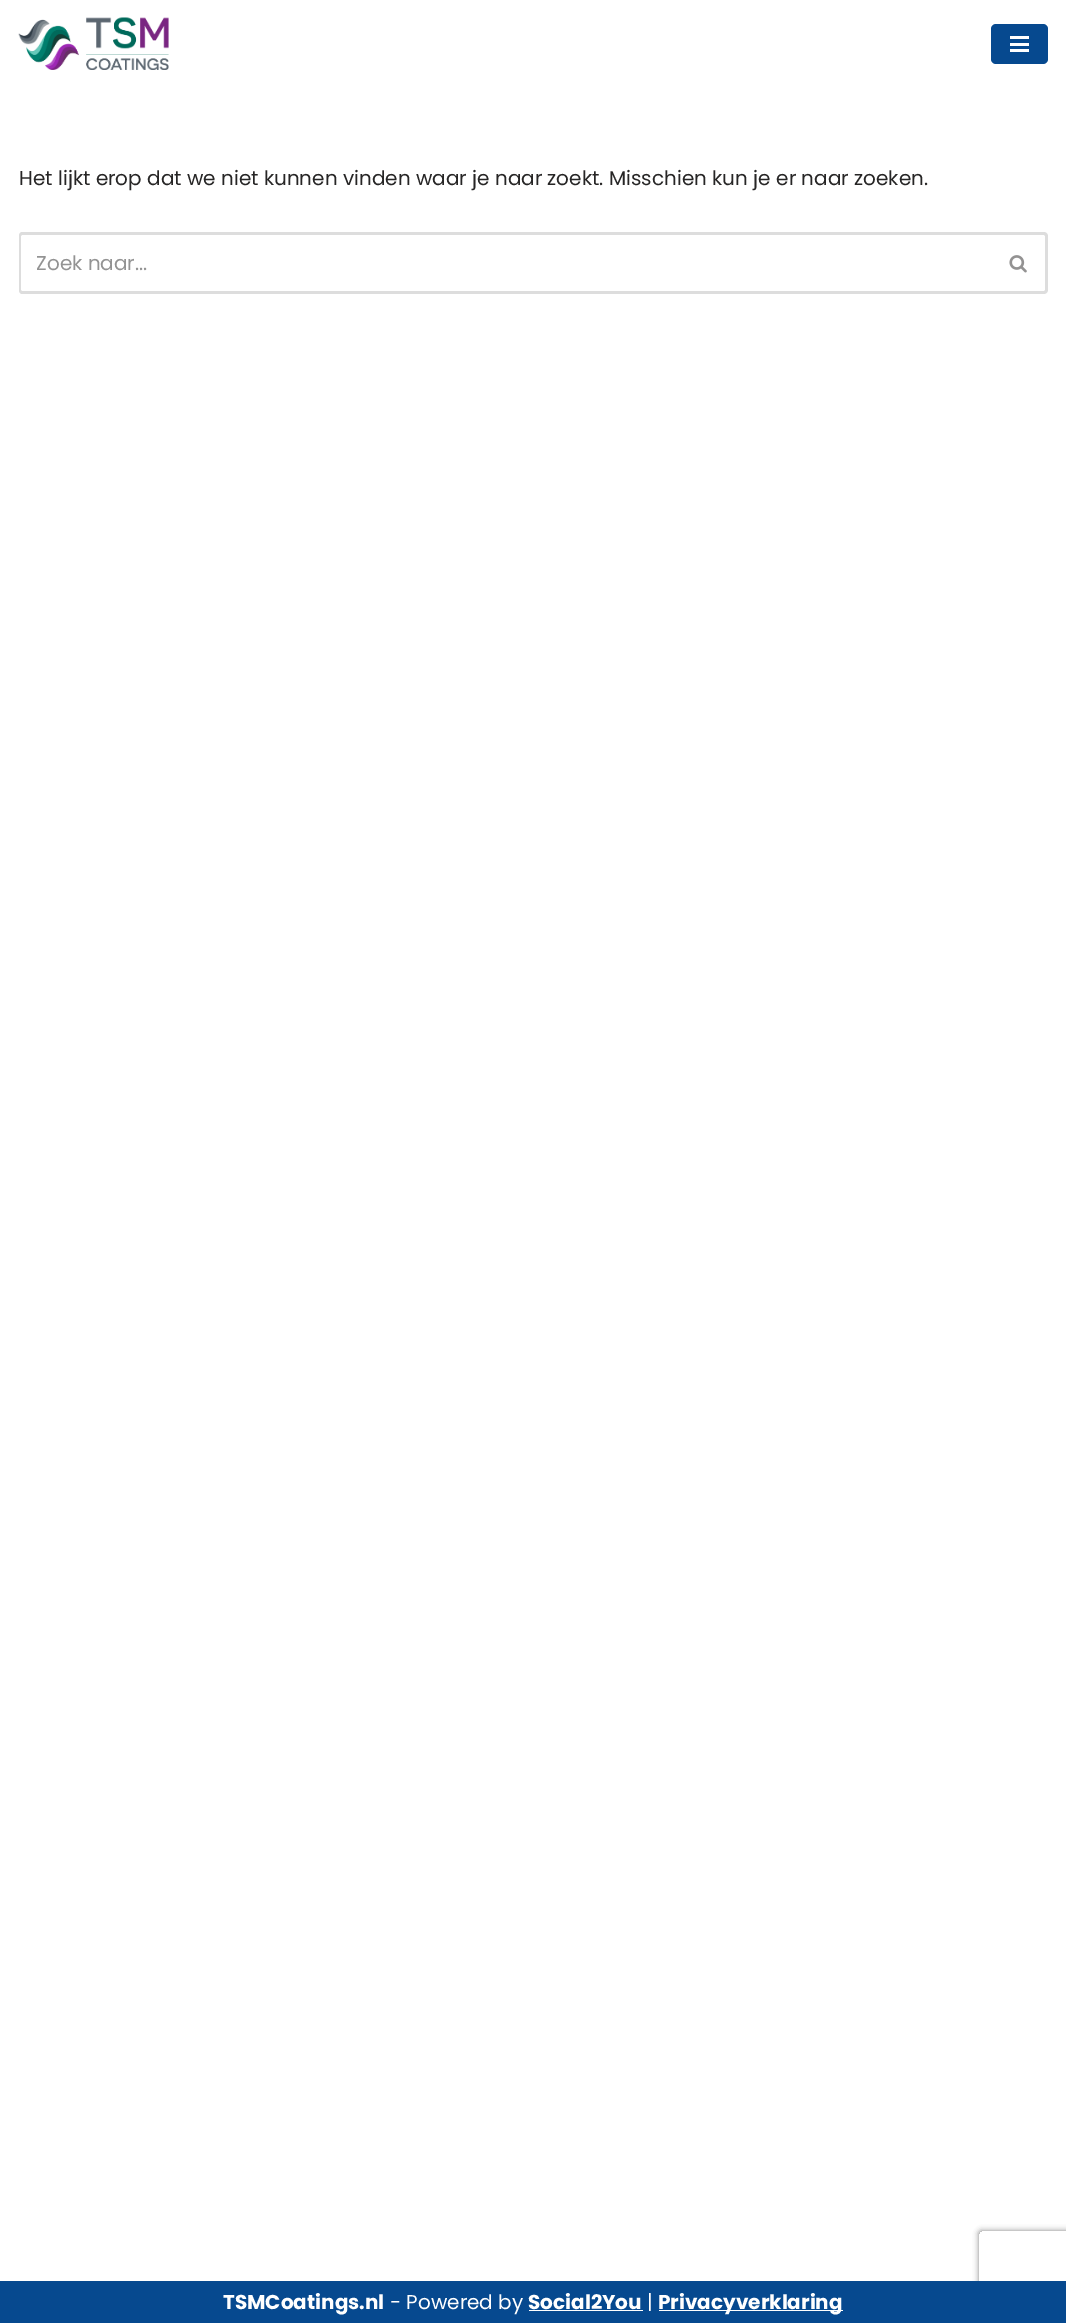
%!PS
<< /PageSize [1066 2323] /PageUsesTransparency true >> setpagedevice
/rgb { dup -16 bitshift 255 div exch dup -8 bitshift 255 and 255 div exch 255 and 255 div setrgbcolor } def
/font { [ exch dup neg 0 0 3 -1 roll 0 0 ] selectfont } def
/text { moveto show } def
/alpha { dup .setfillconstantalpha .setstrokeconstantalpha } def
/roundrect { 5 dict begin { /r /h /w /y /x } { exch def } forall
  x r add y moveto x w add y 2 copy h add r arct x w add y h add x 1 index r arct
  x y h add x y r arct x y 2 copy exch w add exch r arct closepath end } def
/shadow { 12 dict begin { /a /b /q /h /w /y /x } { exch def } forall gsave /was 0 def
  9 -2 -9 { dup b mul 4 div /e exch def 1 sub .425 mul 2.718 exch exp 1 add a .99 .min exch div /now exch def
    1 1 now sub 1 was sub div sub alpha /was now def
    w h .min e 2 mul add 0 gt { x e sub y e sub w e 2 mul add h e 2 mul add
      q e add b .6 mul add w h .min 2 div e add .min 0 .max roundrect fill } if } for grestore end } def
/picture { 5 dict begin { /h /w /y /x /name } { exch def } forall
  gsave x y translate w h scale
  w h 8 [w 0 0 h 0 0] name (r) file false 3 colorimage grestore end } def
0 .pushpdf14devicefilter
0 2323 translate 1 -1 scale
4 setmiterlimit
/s1 { /Poppins-Regular 20 font 16#272626 rgb } def
/s2 { /Poppins-Regular 20 font 16#939393 rgb } def
/s3 { /Poppins-Bold 20 font 16#FFFFFF rgb } def
/s4 { /Poppins-Regular 20 font 16#FFFFFF rgb } def
16#FFFFFF rgb
0 0 1066 2323 rectfill
(pic1.raw) 18 17 151 53 picture
16#06498F rgb
991 24 57 40 5 roundrect fill
16#FFFFFF rgb
1010 36 19 3 rectfill
1010 43 19 3 rectfill
1010 49 19 3 rectfill
s1
(Het lijkt erop dat we niet kunnen vinden waar je naar zoekt. Misschien kun je er naar zoeken.) 19 185 text
16#DDDDDD rgb
22 232 moveto 991 232 lineto 991 294 lineto 22 294 lineto 20 294 19 292 19 290 curveto 19 236 lineto 19 234 20 232 22 232 curveto closepath 22 235 moveto 991 235 lineto 991 291 lineto 22 291 lineto 22 291 21 291 21 290 curveto 21 236 lineto 21 236 22 235 22 235 curveto closepath eofill
s2
(Zoek naar...) 36 270 text
16#DDDDDD rgb
991 232 moveto 1044 232 lineto 1046 232 1048 234 1048 236 curveto 1048 290 lineto 1048 292 1046 294 1044 294 curveto 991 294 lineto closepath 991 235 moveto 1044 235 lineto 1044 235 1045 236 1045 236 curveto 1045 290 lineto 1045 291 1044 291 1044 291 curveto 991 291 lineto closepath eofill
(pic2.raw) 1009 255 18 18 picture
gsave
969 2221 moveto 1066 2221 lineto 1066 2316 lineto 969 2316 lineto closepath 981.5 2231 moveto 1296.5 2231 lineto 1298 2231 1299 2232 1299 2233.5 curveto 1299 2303.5 lineto 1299 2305 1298 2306 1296.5 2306 curveto 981.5 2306 lineto 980 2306 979 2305 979 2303.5 curveto 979 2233.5 lineto 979 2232 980 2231 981.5 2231 curveto closepath eoclip newpath
16#808080 rgb
979 2231 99 75 2.5 3 1 shadow
grestore
16#06498F rgb
0 2281 1066 42 rectfill
s3
(TSMCoatings.nl) 223 2309 text
s4
(- Powered by) 390 2309 text
s3
(Social2You) 528 2309 text
529 2310 114 1 rectfill
s4
(|) 647 2309 text
659 2310 184 1 rectfill
s3
(Privacyverklaring) 658 2309 text
.poppdf14devicefilter showpage
